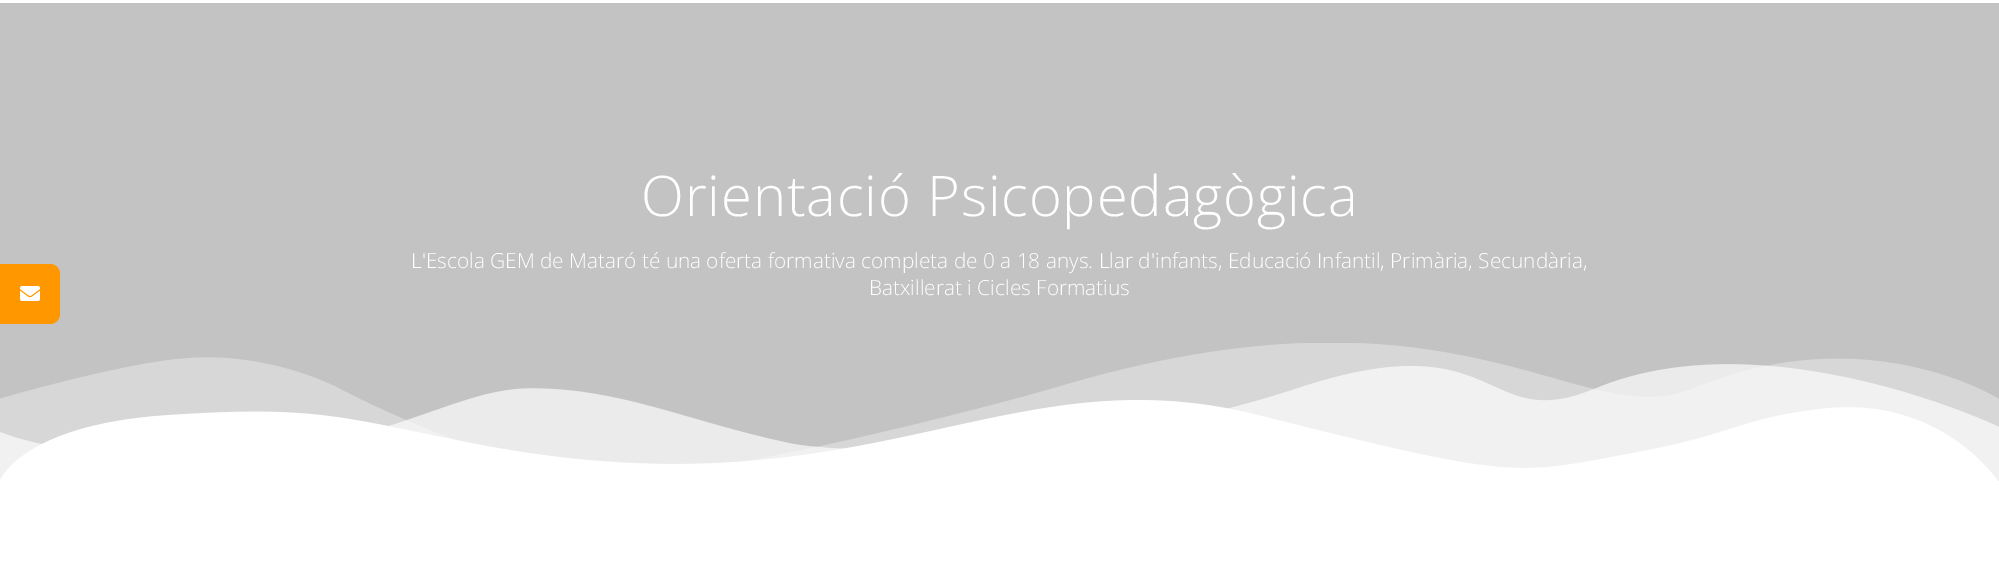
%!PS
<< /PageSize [1999 587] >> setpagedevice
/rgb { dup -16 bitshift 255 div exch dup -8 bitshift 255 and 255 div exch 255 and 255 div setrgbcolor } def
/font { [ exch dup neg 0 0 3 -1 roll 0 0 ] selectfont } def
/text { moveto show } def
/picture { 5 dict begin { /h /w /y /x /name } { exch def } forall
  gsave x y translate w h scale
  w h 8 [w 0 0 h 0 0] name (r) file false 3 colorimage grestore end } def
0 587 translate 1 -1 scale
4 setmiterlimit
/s1 { /OpenSans-Light 20.8 font 16#FFFFFF rgb } def
16#FFFFFF rgb
0 0 1999 587 rectfill
16#C3C3C3 rgb
0 3 1999 478 rectfill
16#FF9800 rgb
0 264 moveto 50 264 lineto 55.5 264 60 268.5 60 274 curveto 60 314 lineto 60 319.5 55.5 324 50 324 curveto 0 324 lineto closepath fill
(pic1.raw) 20 286 20 15 picture
/OpenSans-Light 56 font
16#FFFFFF rgb
641 216 moveto 0.9 0 (Orientació Psicopedagògica) ashow
s1
(L'Escola GEM de Mataró té una oferta formativa completa de 0 a 18 anys. Llar d'infants, Educació Infantil, Primària, Secundària,) 411 268 text
(Batxillerat i Cicles Formatius) 869 295 text
(pic2.raw) 0 343 1999 138 picture
showpage
